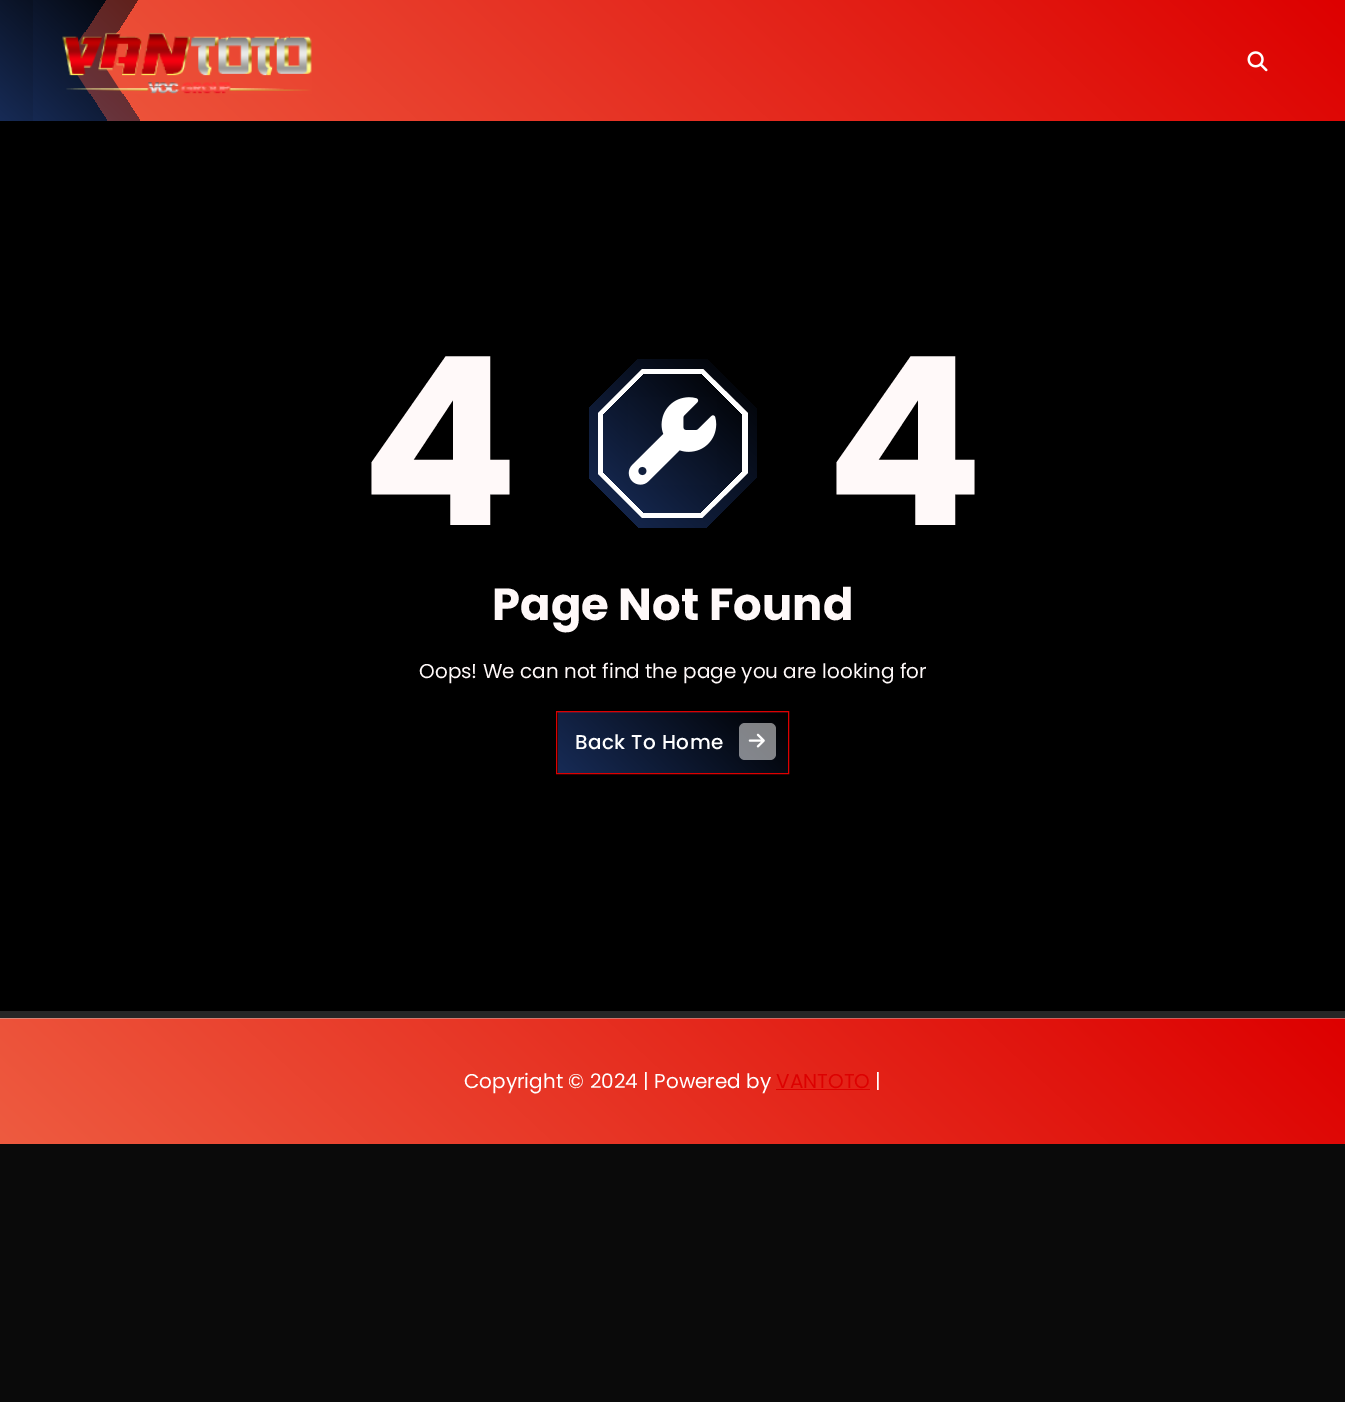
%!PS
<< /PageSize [1345 1402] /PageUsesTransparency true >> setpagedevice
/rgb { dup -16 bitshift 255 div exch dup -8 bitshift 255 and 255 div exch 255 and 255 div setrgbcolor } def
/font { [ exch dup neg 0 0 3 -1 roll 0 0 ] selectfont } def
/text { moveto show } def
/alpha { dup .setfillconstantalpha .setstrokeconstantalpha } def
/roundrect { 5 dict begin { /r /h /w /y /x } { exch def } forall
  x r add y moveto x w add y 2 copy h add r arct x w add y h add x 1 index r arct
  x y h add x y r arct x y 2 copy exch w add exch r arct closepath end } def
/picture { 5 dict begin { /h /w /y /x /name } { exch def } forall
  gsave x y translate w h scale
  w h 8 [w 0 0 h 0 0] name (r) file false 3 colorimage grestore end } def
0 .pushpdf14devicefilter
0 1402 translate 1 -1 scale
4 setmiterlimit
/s1 { /Poppins-Bold 235 font 16#FFF9F9 rgb } def
/s2 { /Poppins-Bold 45 font 16#FFF9F9 rgb } def
/s3 { /Poppins-Regular 20 font 16#FFF9F9 rgb } def
/s4 { /Poppins-Regular 20 font 16#FFFFFF rgb } def
/s5 { /Poppins-Regular 20 font 16#DD0000 rgb } def
16#0A0A0A rgb
0 0 1345 1402 rectfill
gsave 67 0 moveto 1345 0 lineto 1345 121 lineto 67 121 lineto closepath clip newpath
<< /ShadingType 2 /ColorSpace /DeviceRGB /Coords [1016 -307 329 428] /Extend [true true] /Function << /FunctionType 2 /Domain [0 1] /C0 [0.867 0 0] /C1 [0.933 0.357 0.251] /N 1 >> >> shfill grestore
gsave 0 -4 moveto 0 121 lineto 107 121 lineto 67 59 lineto 108 -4 lineto closepath clip newpath
<< /ShadingType 2 /ColorSpace /DeviceRGB /Coords [130 -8 4.9 126] /Extend [true true] /Function << /FunctionType 2 /Domain [0 1] /C0 [0 0 0] /C1 [0.09 0.169 0.337] /N 1 >> >> shfill grestore
0.6 alpha
gsave 140 121 moveto 33 121 lineto 33 -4 lineto 140 -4 lineto 100 59 lineto closepath clip newpath
<< /ShadingType 2 /ColorSpace /DeviceRGB /Coords [163 -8 37 126] /Extend [true true] /Function << /FunctionType 2 /Domain [0 1] /C0 [0 0 0] /C1 [0.09 0.169 0.337] /N 1 >> >> shfill grestore
1 alpha
(pic1.raw) 62 32 250 62 picture
(pic2.raw) 1247 51 21 21 picture
16#000000 rgb
0 121 1345 890 rectfill
s1
(4) 360 525 text
gsave 589 408 moveto 638 359 lineto 706 359 lineto 757 409 lineto 757 477 lineto 706 528 lineto 639 528 lineto 589 478 lineto closepath clip newpath
<< /ShadingType 2 /ColorSpace /DeviceRGB /Coords [754 356 592 530] /Extend [true true] /Function << /FunctionType 2 /Domain [0 1] /C0 [0 0 0] /C1 [0.09 0.169 0.337] /N 1 >> >> shfill grestore
16#FFFFFF rgb
598 413 moveto 642 369 lineto 703 369 lineto 748 413 lineto 748 473 lineto 702 518 lineto 642 518 lineto 598 474 lineto closepath fill
gsave 603 415 moveto 644 374 lineto 701 374 lineto 742 415 lineto 742 471 lineto 700 513 lineto 644 513 lineto 603 472 lineto closepath clip newpath
<< /ShadingType 2 /ColorSpace /DeviceRGB /Coords [740 371 605 516] /Extend [true true] /Function << /FunctionType 2 /Domain [0 1] /C0 [0 0 0] /C1 [0.09 0.169 0.337] /N 1 >> >> shfill grestore
(pic3.raw) 628 397 89 88 picture
s1
(4) 825 525 text
s2
(Page Not Found) 492 620 text
s3
(Oops! We can not find the page you are looking for) 419 678 text
gsave 556 712 moveto 558 712 lineto 558 713 lineto 556 713 lineto closepath clip newpath
<< /ShadingType 2 /ColorSpace /DeviceRGB /Coords [511 609 374 756] /Extend [true true] /Function << /FunctionType 2 /Domain [0 1] /C0 [0 0 0] /C1 [0.09 0.169 0.337] /N 1 >> >> shfill grestore
gsave 558 712 moveto 788 712 lineto 788 713 lineto 558 713 lineto closepath clip newpath
<< /ShadingType 2 /ColorSpace /DeviceRGB /Coords [741 609 604 756] /Extend [true true] /Function << /FunctionType 2 /Domain [0 1] /C0 [0 0 0] /C1 [0.09 0.169 0.337] /N 1 >> >> shfill grestore
gsave 557 713 moveto 558 713 lineto 558 773 lineto 557 773 lineto closepath clip newpath
<< /ShadingType 2 /ColorSpace /DeviceRGB /Coords [511 669 374 816] /Extend [true true] /Function << /FunctionType 2 /Domain [0 1] /C0 [0 0 0] /C1 [0.09 0.169 0.337] /N 1 >> >> shfill grestore
gsave 558 713 moveto 788 713 lineto 788 773 lineto 558 773 lineto closepath clip newpath
<< /ShadingType 2 /ColorSpace /DeviceRGB /Coords [741 669 604 816] /Extend [true true] /Function << /FunctionType 2 /Domain [0 1] /C0 [0 0 0] /C1 [0.09 0.169 0.337] /N 1 >> >> shfill grestore
16#DD0000 rgb
556.5 711.5 232 62 rectstroke
/Poppins-Medium 20 font
16#FFFFFF rgb
575 749 moveto 0.4 0 (Back To Home) ashow
0.5 alpha
739 723 37 37 6 roundrect fill
1 alpha
(pic4.raw) 748 733 17 15 picture
16#262626 rgb
0 1011 1345 7 rectfill
gsave 0 1018 moveto 1345 1018 lineto 1345 1019 lineto 0 1019 lineto closepath clip newpath
<< /ShadingType 2 /ColorSpace /DeviceRGB /Coords [1016 587 329 1325] /Extend [true true] /Function << /FunctionType 2 /Domain [0 1] /C0 [0.812 0.333 0.333] /C1 [0.847 0.529 0.471] /N 1 >> >> shfill grestore
gsave 0 1019 moveto 1345 1019 lineto 1345 1144 lineto 0 1144 lineto closepath clip newpath
<< /ShadingType 2 /ColorSpace /DeviceRGB /Coords [1016 712 329 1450] /Extend [true true] /Function << /FunctionType 2 /Domain [0 1] /C0 [0.867 0 0] /C1 [0.933 0.357 0.251] /N 1 >> >> shfill grestore
s4
(Copyright © 2024 | Powered by) 464 1088 text
s5
(VANTOTO) 776 1088 text
776 1089 94 1 rectfill
s4
(|) 875 1088 text
.poppdf14devicefilter showpage
